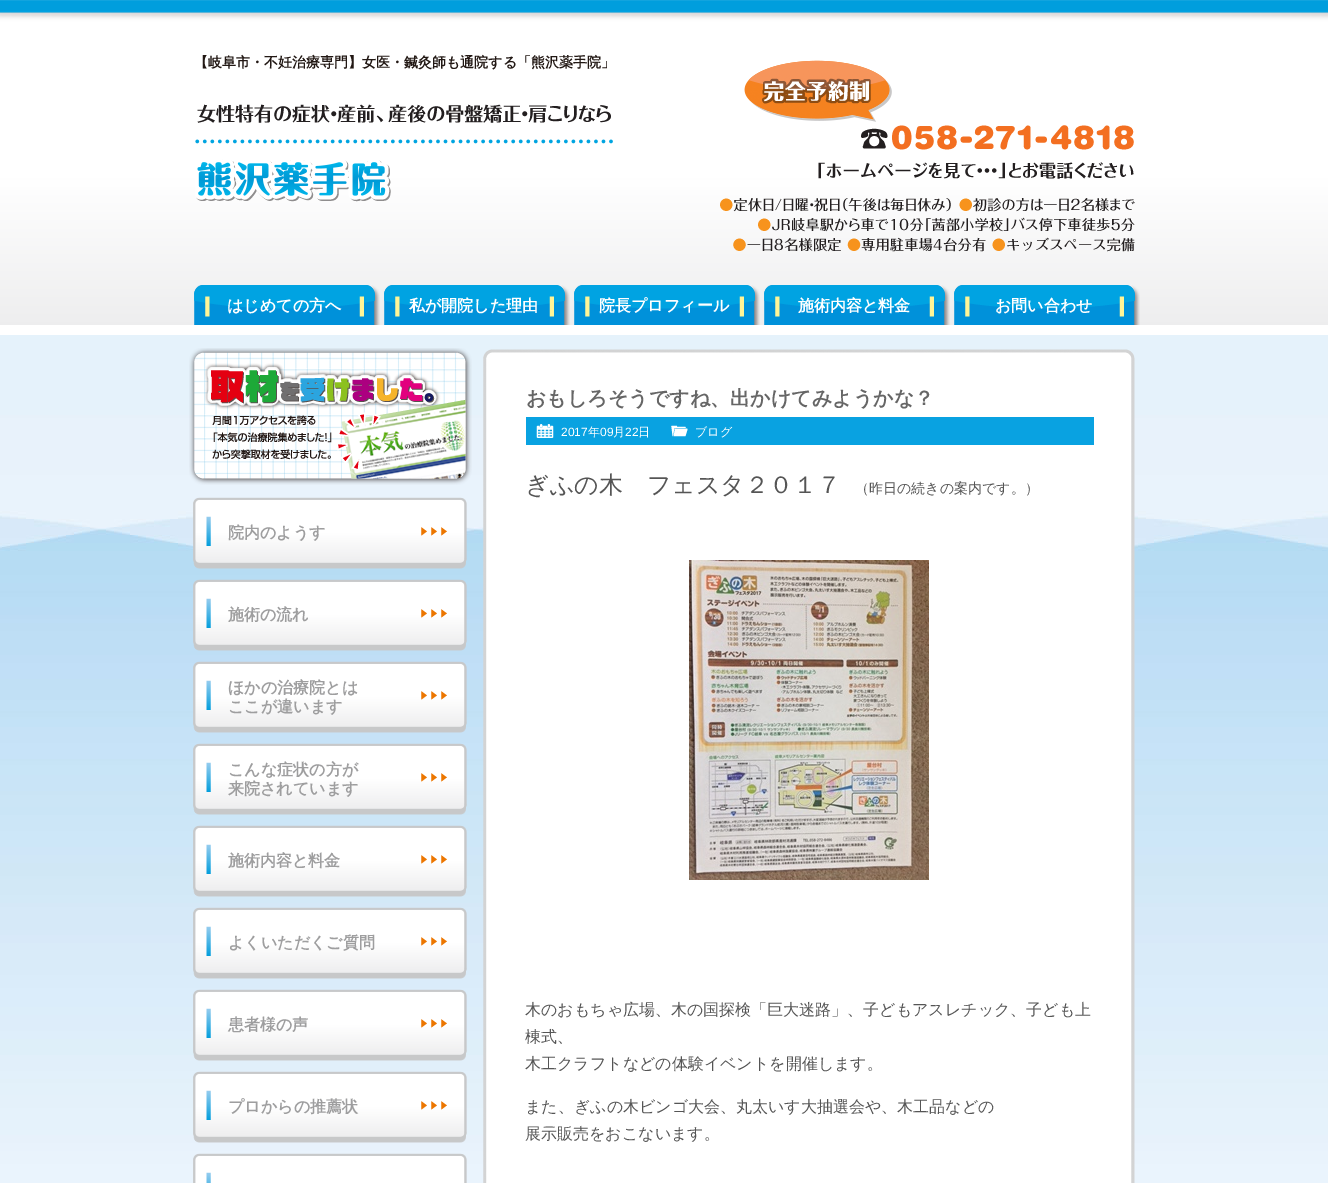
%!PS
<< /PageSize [1328 1183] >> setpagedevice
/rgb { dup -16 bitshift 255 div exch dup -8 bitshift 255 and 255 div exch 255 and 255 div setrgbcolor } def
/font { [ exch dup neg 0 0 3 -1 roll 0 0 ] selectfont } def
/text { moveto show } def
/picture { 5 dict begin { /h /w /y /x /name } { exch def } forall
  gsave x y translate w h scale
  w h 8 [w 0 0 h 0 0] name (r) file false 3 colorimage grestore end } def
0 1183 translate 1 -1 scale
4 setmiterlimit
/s1 { /WenQuanYiZenHei-Bold 14 font 16#221814 rgb } def
/s2 { /WenQuanYiZenHei-Bold 16 font 16#FFFFFF rgb } def
/s3 { /WenQuanYiZenHei-Bold 16 font 16#9E9E9F rgb } def
/s4 { /WenQuanYiZenHei-Bold 20 font 16#666666 rgb } def
/s5 { /LiberationSans-Regular 12 font 16#FFFFFF rgb } def
/s6 { /WenQuanYiZenHei-Medium 12 font 16#FFFFFF rgb } def
/s7 { /WenQuanYiZenHei-Medium 24 font 16#555555 rgb } def
/s8 { /WenQuanYiZenHei-Medium 14 font 16#555555 rgb } def
/s9 { /WenQuanYiZenHei-Medium 16 font 16#555555 rgb } def
16#FFFFFF rgb
0 0 1328 1183 rectfill
(pic1.raw) 0 0 1328 325 picture
s1
(【岐阜市・不妊治療専門】女医・鍼灸師も通院する「熊沢薬手院」) 194 67 text
(pic2.raw) 720 60 415 192 picture
(pic3.raw) 195 104 418 98 picture
(pic4.raw) 194 285 186 40 picture
s2
(はじめての方へ) 227 311 text
(pic4.raw) 384 285 186 40 picture
(私が開院した理由) 409 311 text
(pic4.raw) 574 285 186 40 picture
(院長プロフィール) 599 311 text
(pic4.raw) 764 285 186 40 picture
(施術内容と料金) 798 311 text
(pic4.raw) 954 285 186 40 picture
(お問い合わせ) 995 311 text
(pic5.raw) 0 335 1328 848 picture
(pic6.raw) 189 348 283 137 picture
(pic7.raw) 193 497 274 72 picture
s3
(院内のようす) 228 538 text
(pic8.raw) 193 579 274 72 picture
(施術の流れ) 228 620 text
(pic9.raw) 193 661 274 72 picture
(ほかの治療院とは) 228 693 text
(ここが違います) 228 712 text
(pic10.raw) 193 743 274 72 picture
(こんな症状の方が) 228 775 text
(来院されています) 228 794 text
(pic11.raw) 193 825 274 72 picture
(施術内容と料金) 228 866 text
(pic12.raw) 193 907 274 72 picture
(よくいただくご質問) 228 948 text
(pic13.raw) 193 989 274 72 picture
(患者様の声) 228 1030 text
(pic14.raw) 193 1071 274 72 picture
(プロからの推薦状) 228 1112 text
(pic15.raw) 193 1153 274 30 picture
(pic16.raw) 483 349 652 20 picture
(pic17.raw) 483 369 652 814 picture
s4
(おもしろそうですね、出かけてみようかな？) 526 405 text
16#09A2E1 rgb
526 417 568 28 rectfill
(pic18.raw) 536 424 18 14 picture
s5
(2017) 561 436 text
s6
(年) 588 436 text
s5
(09) 600 436 text
s6
(月) 613 436 text
s5
(22) 625 436 text
s6
(日) 638 436 text
(pic19.raw) 671 425 17 12 picture
(ブログ) 695 436 text
s7
(ぎふの木　フェスタ２０１７) 525 493 text
s8
(（昨日の続きの案内です。）) 855 493 text
(pic20.raw) 689 560 240 320 picture
s9
(木のおもちゃ広場、木の国探検「巨大迷路」、子どもアスレチック、子ども上) 525 1015 text
(棟式、) 525 1042 text
(木工クラフトなどの体験イベントを開催します。) 525 1069 text
(また、ぎふの木ビンゴ大会、丸太いす大抽選会や、木工品などの) 525 1112 text
(展示販売をおこないます。) 525 1139 text
showpage
